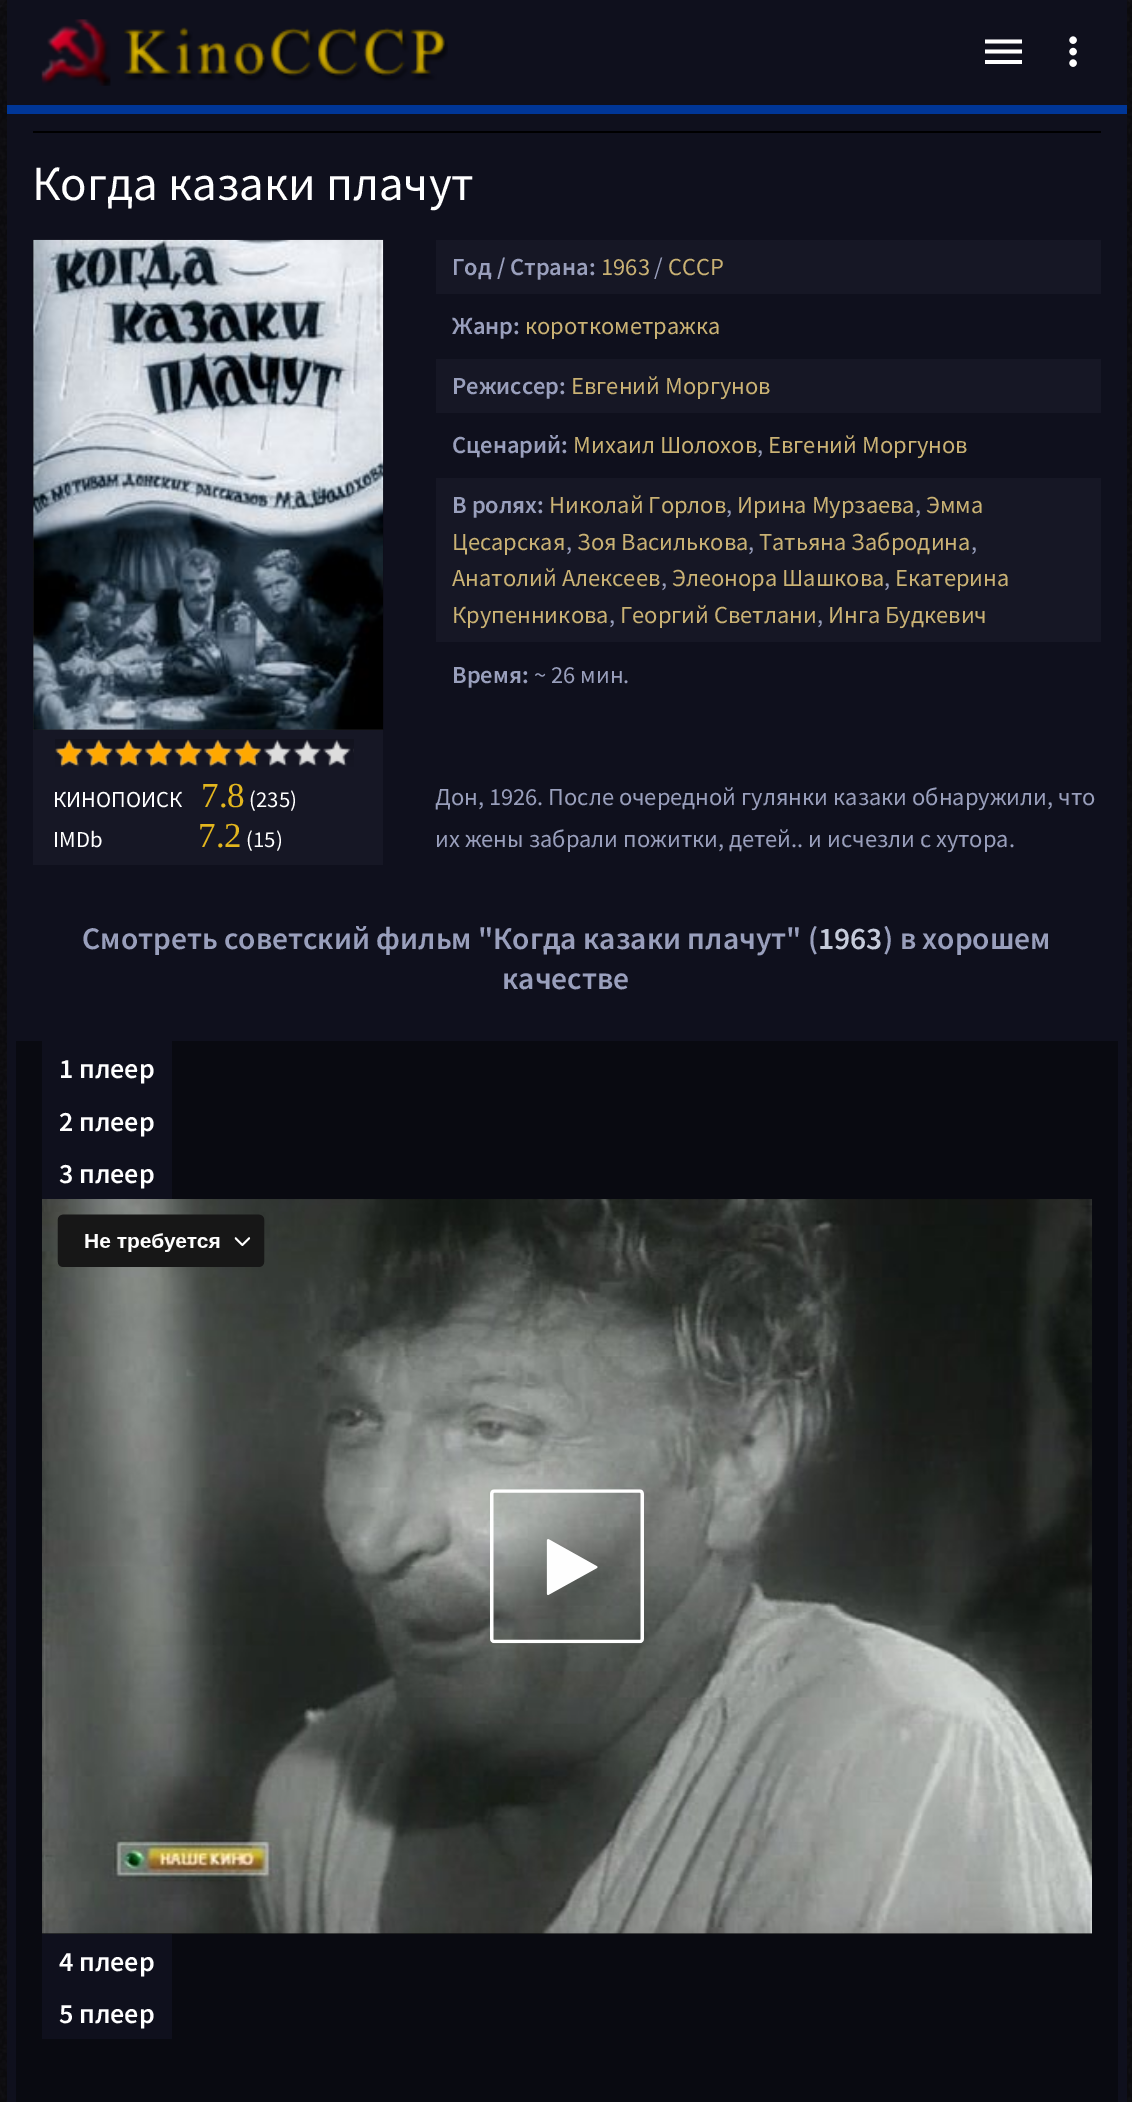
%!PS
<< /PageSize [1132 2102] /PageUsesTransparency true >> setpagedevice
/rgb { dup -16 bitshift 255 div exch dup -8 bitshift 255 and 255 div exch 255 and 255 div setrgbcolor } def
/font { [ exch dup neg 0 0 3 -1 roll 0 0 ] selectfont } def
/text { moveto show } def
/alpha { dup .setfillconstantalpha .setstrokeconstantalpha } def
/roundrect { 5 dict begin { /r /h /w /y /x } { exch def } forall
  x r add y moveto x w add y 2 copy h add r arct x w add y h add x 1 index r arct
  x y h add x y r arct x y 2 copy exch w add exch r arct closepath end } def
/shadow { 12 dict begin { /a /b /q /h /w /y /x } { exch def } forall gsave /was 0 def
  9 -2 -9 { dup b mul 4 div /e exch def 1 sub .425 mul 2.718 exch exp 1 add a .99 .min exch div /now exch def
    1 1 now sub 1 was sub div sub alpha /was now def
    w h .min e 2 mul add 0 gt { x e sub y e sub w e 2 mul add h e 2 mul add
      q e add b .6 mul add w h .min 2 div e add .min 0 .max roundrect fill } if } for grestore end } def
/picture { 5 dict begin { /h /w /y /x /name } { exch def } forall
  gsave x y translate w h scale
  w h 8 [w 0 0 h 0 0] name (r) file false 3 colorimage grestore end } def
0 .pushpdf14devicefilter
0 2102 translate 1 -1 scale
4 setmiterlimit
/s1 { /SourceSansPro-Regular 49 font 16#FFFFFF rgb } def
/s2 { /SourceSansPro-Regular 22.75 font 16#FFFFFF rgb } def
/s3 { /LiberationSerif-Regular 35 font 16#E3B61E rgb } def
/s4 { /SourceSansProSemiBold-SemiBold 24.5 font 16#999FBC rgb } def
/s5 { /SourceSansPro-Regular 24.5 font 16#CAB274 rgb } def
/s6 { /SourceSansPro-Regular 24.5 font 16#999FBC rgb } def
/s7 { /SourceSansProSemiBold-SemiBold 31.5 font 16#999FBC rgb } def
/s8 { /SourceSansProSemiBold-SemiBold 31.5 font 16#C5CBDA rgb } def
/s9 { /SourceSansProSemiBold-SemiBold 28 font 16#FFFFFF rgb } def
16#FFFFFF rgb
0 0 1132 2102 rectfill
(pic1.raw) 0 0 1132 2102 picture
16#000000 rgb
7 0 1120 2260 0 52.5 0.9 shadow
16#0F101D rgb
7 0 1120 2102 rectfill
16#003697 rgb
7 105 1120 9 rectfill
(pic2.raw) 41 19 407 67 picture
16#FFFFFF rgb
985 64 moveto 985 60 lineto 1022 60 lineto 1022 64 lineto closepath 985 53.5 moveto 985 49.5 lineto 1022 49.5 lineto 1022 53.5 lineto closepath 985 39.5 moveto 1022 39.5 lineto 1022 43.5 lineto 985 43.5 lineto closepath fill
(pic3.raw) 1069 36 8 31 picture
16#000000 rgb
33 131 1068 2 rectfill
s1
(Когда казаки плачут) 32 200 text
16#222222 rgb
33 240 350 490 rectfill
(pic4.raw) 33 239 351 491 picture
16#161725 rgb
33 730 350 135 rectfill
(pic5.raw) 55 739 299 28 picture
(pic6.raw) 55 739 207 28 picture
s2
(КИНОПОИСК) 53 807 text
s3
(7.8) 201 807 text
s2
(\(235\)) 249 807 text
(IMDb) 53 847 text
s3
(7.2) 198 847 text
s2
(\(15\)) 246 847 text
16#161725 rgb
436 240 665 54 rectfill
s4
(Год / Страна:) 452 275 text
s5
(1963) 601 275 text
s6
(/) 654 275 text
s5
(СССР) 668 275 text
s4
(Жанр:) 452 334 text
s5
(короткометражка) 525 334 text
16#161725 rgb
436 359 665 54 rectfill
s4
(Режиссер:) 452 394 text
s5
(Евгений Моргунов) 571 394 text
s4
(Сценарий:) 452 453 text
s5
(Михаил Шолохов) 573 453 text
s6
(,) 757 453 text
s5
(Евгений Моргунов) 768 453 text
16#161725 rgb
436 478 665 164 rectfill
s4
(В ролях:) 452 513 text
s5
(Николай Горлов) 549 513 text
s6
(,) 726 513 text
s5
(Ирина Мурзаева) 737 513 text
s6
(,) 915 513 text
s5
(Эмма) 926 513 text
(Цесарская) 452 550 text
s6
(,) 566 550 text
s5
(Зоя Василькова) 577 550 text
s6
(,) 748 550 text
s5
(Татьяна Забродина) 759 550 text
s6
(,) 971 550 text
s5
(Анатолий Алексеев) 452 586 text
s6
(,) 661 586 text
s5
(Элеонора Шашкова) 672 586 text
s6
(,) 884 586 text
s5
(Екатерина) 895 586 text
(Крупенникова) 452 623 text
s6
(,) 609 623 text
s5
(Георгий Светлани) 620 623 text
s6
(,) 817 623 text
s5
(Инга Будкевич) 828 623 text
s4
(Время:) 452 683 text
s6
(~ 26 мин.) 534 683 text
(Дон, 1926. После очередной гулянки казаки обнаружили, что) 435 805 text
(их жены забрали пожитки, детей.. и исчезли с хутора.) 435 847 text
s7
(Смотреть советский фильм "Когда казаки плачут" \() 82 949 text
s8
(1963) 818 949 text
s7
(\) в хорошем) 883 949 text
(качестве) 502 989 text
16#090A11 rgb
16 1041 1102 1061 rectfill
16#0F101D rgb
42 1041 130 158 rectfill
s9
(1 плеер) 59 1078 text
(2 плеер) 59 1131 text
(3 плеер) 59 1183 text
(pic7.raw) 42 1199 1050 735 picture
16#0F101D rgb
42 1934 130 105 rectfill
s9
(4 плеер) 59 1971 text
(5 плеер) 59 2023 text
.poppdf14devicefilter showpage
